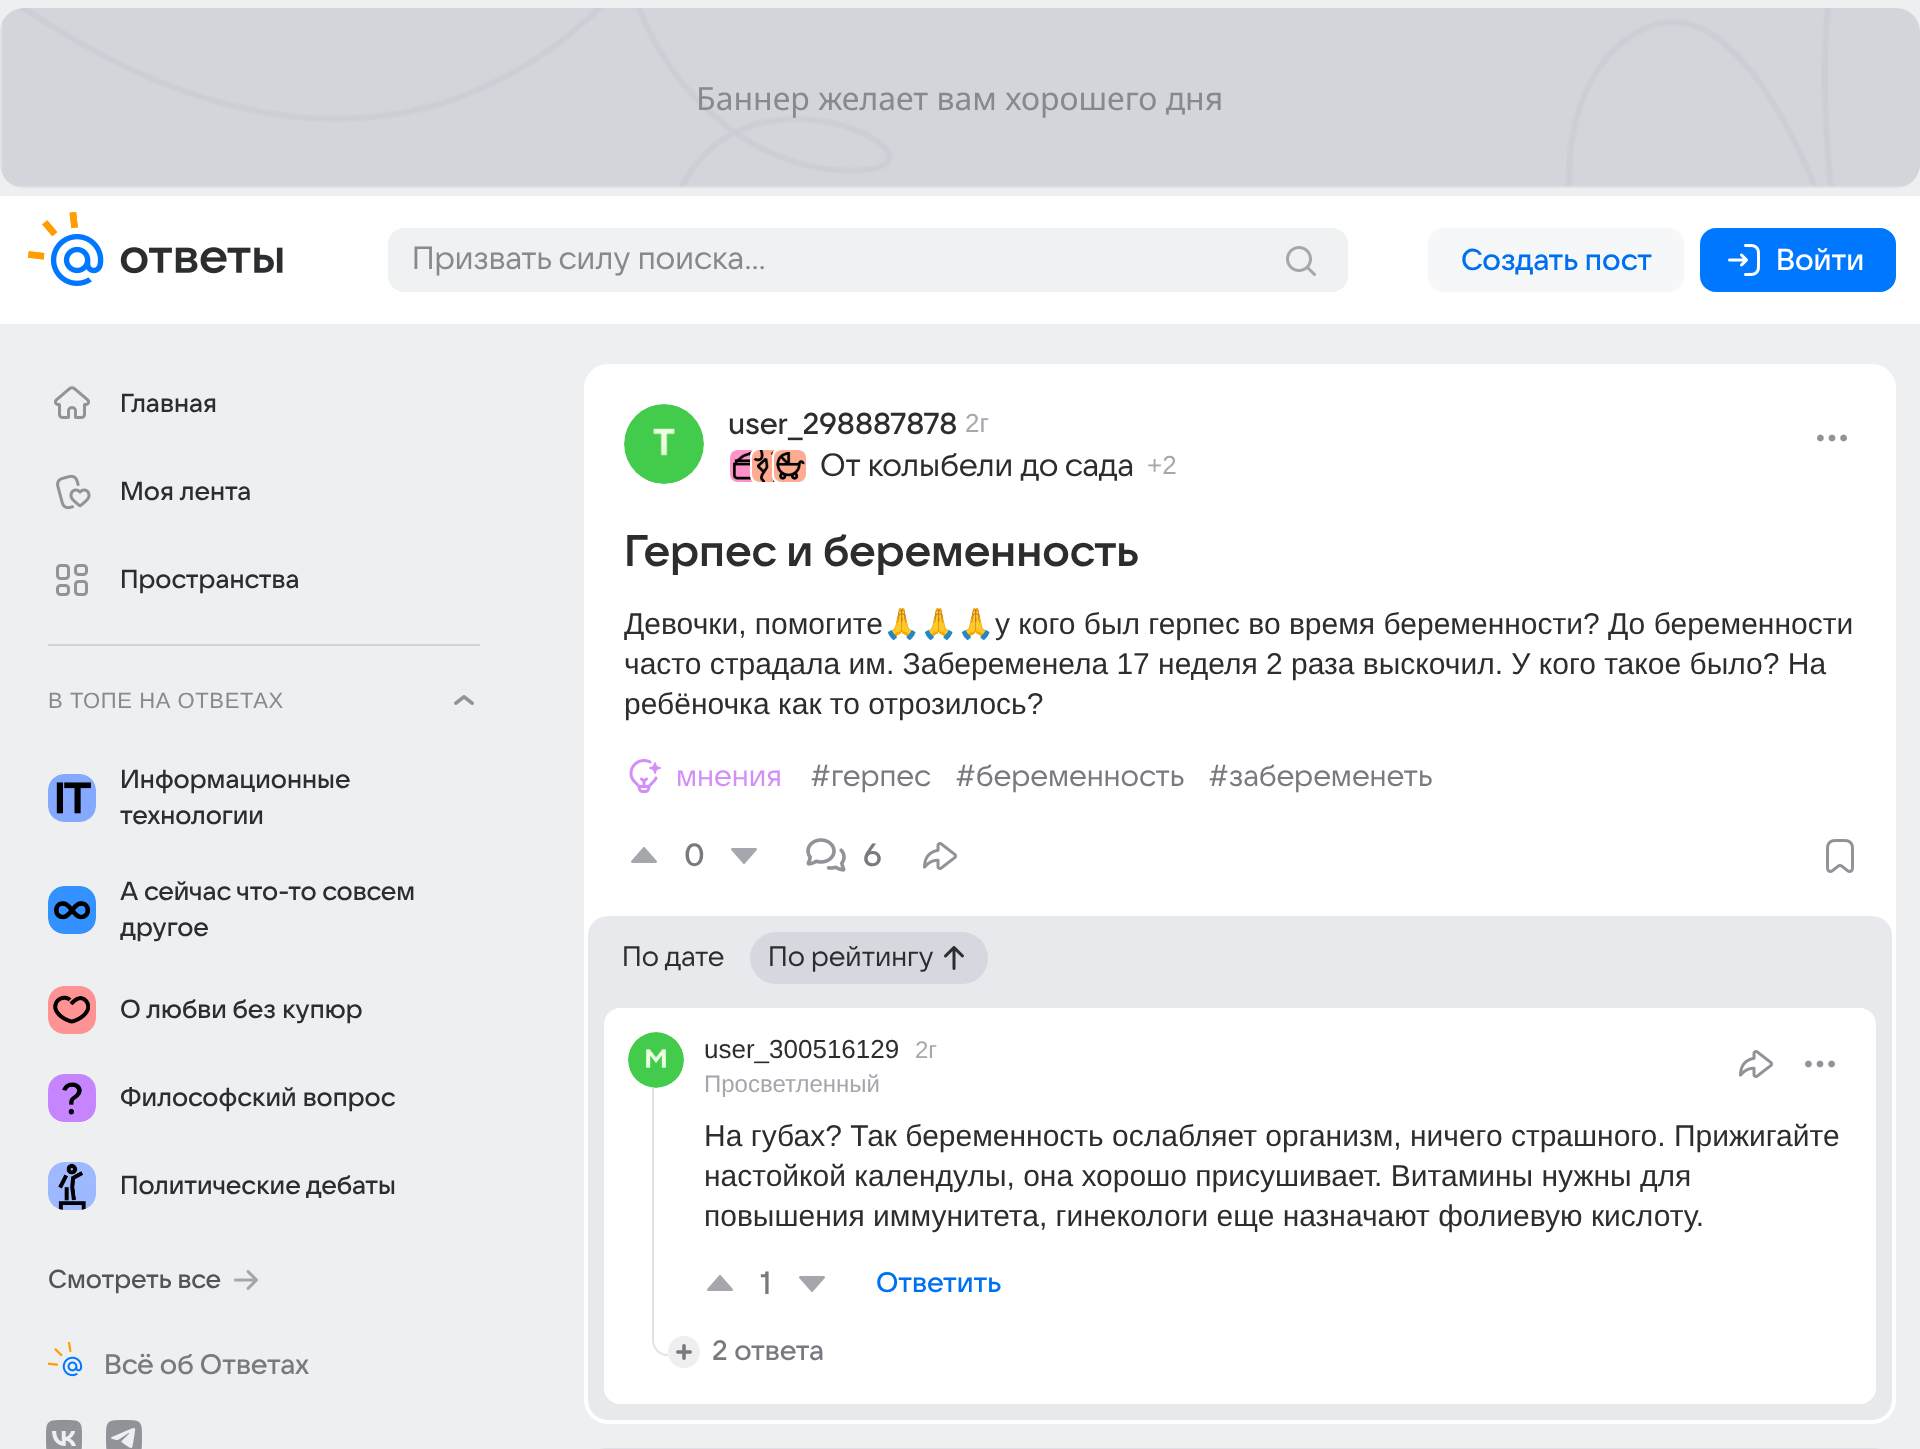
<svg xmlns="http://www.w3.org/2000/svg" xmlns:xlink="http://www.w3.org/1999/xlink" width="1920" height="1449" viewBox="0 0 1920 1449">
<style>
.cls-1{font:32px Noto Sans;fill:#87898f}
.cls-2{font:32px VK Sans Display;fill:#87898f}
.cls-3{font:500 30px VK Sans Display;fill:#0070f0}
.cls-4{font:500 30px VK Sans Display;fill:#ffffff}
.cls-5{font:500 26px VK Sans Display;fill:#2c2d2e}
.cls-6{font:22px Liberation Sans;letter-spacing:0.6px;fill:#87898f}
.cls-7{font:500 26px VK Sans Display;fill:#535455}
.cls-8{font:500 28px VK Sans Display;fill:#797a80}
.cls-9{font:500 30px VK Sans Display;fill:#2c2d2e}
.cls-10{font:26px Liberation Sans;fill:#a5a7ad}
.cls-11{font:32px VK Sans Display;fill:#2c2d2e}
.cls-12{font:600 44px VK Sans Display;fill:#2c2d2e}
.cls-13{font:30px Liberation Sans;fill:#2c2d2e}
.cls-14{font:30px Noto Color Emoji;fill:#2c2d2e}
.cls-15{font:30px VK Sans Display;fill:#d48ef7}
.cls-16{font:30px VK Sans Display;fill:#797a80}
.cls-17{font:500 32px VK Sans Display;fill:#797a80}
.cls-18{font:28px VK Sans Display;fill:#2c2d2e}
.cls-19{font:26px Liberation Sans;fill:#2c2d2e}
.cls-20{font:24px Liberation Sans;fill:#a5a7ad}
.cls-21{font:500 28px VK Sans Display;fill:#0070f0}
</style>
<rect width="100%" height="100%" fill="#eeeff1"/>
<rect fill="#e1e2e5" x="0" y="8" width="1920" height="180" rx="24"/>
<image xlink:href="image0.png" x="2" y="8" width="1918" height="179"/>
<rect fill="#ffffff" x="0" y="196" width="1920" height="128"/>
<image xlink:href="image1.png" x="28" y="212" width="255" height="74"/>
<rect fill="#f0f1f3" x="388" y="228" width="960" height="64" rx="16"/>
<image xlink:href="image2.png" x="1286" y="246" width="30" height="30"/>
<rect fill="#f6f7f8" x="1428" y="228" width="256" height="64" rx="16"/>
<rect fill="#0077ff" x="1700" y="228" width="196" height="64" rx="16"/>
<image xlink:href="image3.png" x="1728" y="244" width="32" height="32"/>
<image xlink:href="image4.png" x="54" y="386" width="36" height="33"/>
<image xlink:href="image5.png" x="56" y="474" width="35" height="36"/>
<image xlink:href="image6.png" x="56" y="564" width="32" height="32"/>
<rect fill="#d1d4db" x="48" y="644" width="432" height="2"/>
<image xlink:href="image7.png" x="454" y="695" width="20" height="10"/>
<image xlink:href="image8.png" x="48" y="774" width="48" height="48"/>
<image xlink:href="image9.png" x="48" y="886" width="48" height="48"/>
<image xlink:href="image10.png" x="48" y="986" width="48" height="48"/>
<image xlink:href="image11.png" x="48" y="1074" width="48" height="48"/>
<image xlink:href="image12.png" x="48" y="1162" width="48" height="48"/>
<image xlink:href="image13.png" x="234" y="1270" width="24" height="20"/>
<image xlink:href="image14.png" x="48" y="1342" width="35" height="35"/>
<image xlink:href="image15.png" x="46" y="1420" width="36" height="29"/>
<image xlink:href="image16.png" x="106" y="1420" width="36" height="29"/>
<rect fill="#ffffff" x="584" y="364" width="1312" height="1060" rx="24"/>
<circle fill="#f0f1f3" cx="664" cy="444" r="40"/>
<image xlink:href="image17.png" x="624" y="404" width="80" height="80"/>
<rect fill="#f0f1f3" stroke="#ffffff" stroke-width="2" x="729" y="449" width="34" height="34" rx="7"/>
<image xlink:href="image18.png" x="730" y="450" width="23" height="32"/>
<rect fill="#f0f1f3" stroke="#ffffff" stroke-width="2" x="751" y="449" width="34" height="34" rx="7"/>
<image xlink:href="image19.png" x="752" y="450" width="23" height="32"/>
<rect fill="#f0f1f3" stroke="#ffffff" stroke-width="2" x="773" y="449" width="34" height="34" rx="7"/>
<image xlink:href="image20.png" x="774" y="450" width="32" height="32"/>
<image xlink:href="image21.png" x="1817" y="434" width="30" height="8"/>
<image xlink:href="image22.png" x="629" y="759" width="32" height="34"/>
<image xlink:href="image23.png" x="631" y="847" width="26" height="16"/>
<image xlink:href="image24.png" x="731" y="848" width="26" height="16"/>
<image xlink:href="image25.png" x="806" y="838" width="40" height="34"/>
<image xlink:href="image26.png" x="923" y="842" width="34" height="28"/>
<image xlink:href="image27.png" x="1826" y="839" width="28" height="34"/>
<rect fill="#e7e9ec" x="588" y="916" width="1304" height="504" rx="20"/>
<rect fill="#d5d8de" x="750" y="932" width="238" height="52" rx="26"/>
<image xlink:href="image28.png" x="944" y="946" width="20" height="24"/>
<rect fill="#ffffff" x="604" y="1008" width="1272" height="396" rx="16"/>
<rect fill="#e0e2e8" x="652" y="1087" width="2" height="205"/>
<circle fill="#f0f1f3" cx="656" cy="1060" r="28"/>
<image xlink:href="image29.png" x="628" y="1032" width="56" height="56"/>
<image xlink:href="image26.png" x="1739" y="1050" width="34" height="28"/>
<image xlink:href="image21.png" x="1805" y="1060" width="30" height="8"/>
<image xlink:href="image23.png" x="707" y="1275" width="26" height="16"/>
<image xlink:href="image24.png" x="799" y="1276" width="26" height="16"/>
<path fill="#e0e2e8" fill-rule="evenodd" d="M652 1292H668V1356C659 1356 652 1349 652 1340ZM654 1292H668V1354C660 1354 654 1348 654 1340Z"/>
<image xlink:href="image30.png" x="668" y="1336" width="32" height="32"/>
<rect fill="#dee0e5" x="584" y="1448" width="1312" height="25" rx="24"/>
<text class="cls-1" x="696" y="110">Баннер желает вам хорошего дня</text>
<text class="cls-2" x="412" y="269">Призвать силу поиска...</text>
<text class="cls-3" x="1461" y="270">Создать пост</text>
<text class="cls-4" x="1776" y="270">Войти</text>
<text class="cls-5" x="120" y="412">Главная</text>
<text class="cls-5" x="120" y="500">Моя лента</text>
<text class="cls-5" x="120" y="588">Пространства</text>
<text class="cls-6" x="48" y="708">В ТОПЕ НА ОТВЕТАХ</text>
<text class="cls-5"><tspan x="120" y="788">Информационные</tspan><tspan x="120" y="824">технологии</tspan></text>
<text class="cls-5"><tspan x="120" y="900">А сейчас что-то совсем</tspan><tspan x="120" y="936">другое</tspan></text>
<text class="cls-5" x="120" y="1018">О любви без купюр</text>
<text class="cls-5" x="120" y="1106">Философский вопрос</text>
<text class="cls-5" x="120" y="1194">Политические дебаты</text>
<text class="cls-7" x="48" y="1288">Смотреть все</text>
<text class="cls-8" x="104" y="1374">Всё об Ответах</text>
<text class="cls-9" x="728" y="434">user_298887878</text>
<text class="cls-10" x="965" y="432">2г</text>
<text class="cls-11" x="820" y="476">От колыбели до сада</text>
<text class="cls-10" x="1147" y="474">+2</text>
<text class="cls-12" x="624" y="566">Герпес и беременность</text>
<text class="cls-13" x="624" y="634">Девочки, помогите</text>
<text class="cls-14" x="883" y="634">🙏🙏🙏</text>
<text class="cls-13" x="995" y="634">у кого был герпес во время беременности? До беременности</text>
<text class="cls-13"><tspan x="624" y="674">часто страдала им. Забеременела 17 неделя 2 раза выскочил. У кого такое было? На</tspan><tspan x="624" y="714">ребёночка как то отрозилось?</tspan></text>
<text class="cls-15" x="676" y="786">мнения</text>
<text class="cls-16" x="810" y="786">#герпес</text>
<text class="cls-16" x="955" y="786">#беременность</text>
<text class="cls-16" x="1208" y="786">#забеременеть</text>
<text class="cls-17" x="684" y="866">0</text>
<text class="cls-17" x="863" y="866">6</text>
<text class="cls-18" x="622" y="966">По дате</text>
<text class="cls-18" x="768" y="966">По рейтингу</text>
<text class="cls-19" x="704" y="1058">user_300516129</text>
<text class="cls-20" x="704" y="1092">Просветленный</text>
<text class="cls-20" x="915" y="1058">2г</text>
<text class="cls-13"><tspan x="704" y="1146">На губах? Так беременность ослабляет организм, ничего страшного. Прижигайте</tspan><tspan x="704" y="1186">настойкой календулы, она хорошо присушивает. Витамины нужны для</tspan><tspan x="704" y="1226">повышения иммунитета, гинекологи еще назначают фолиевую кислоту.</tspan></text>
<text class="cls-17" x="760" y="1294">1</text>
<text class="cls-21" x="876" y="1292">Ответить</text>
<text class="cls-8" x="712" y="1360">2 ответа</text>
</svg>
